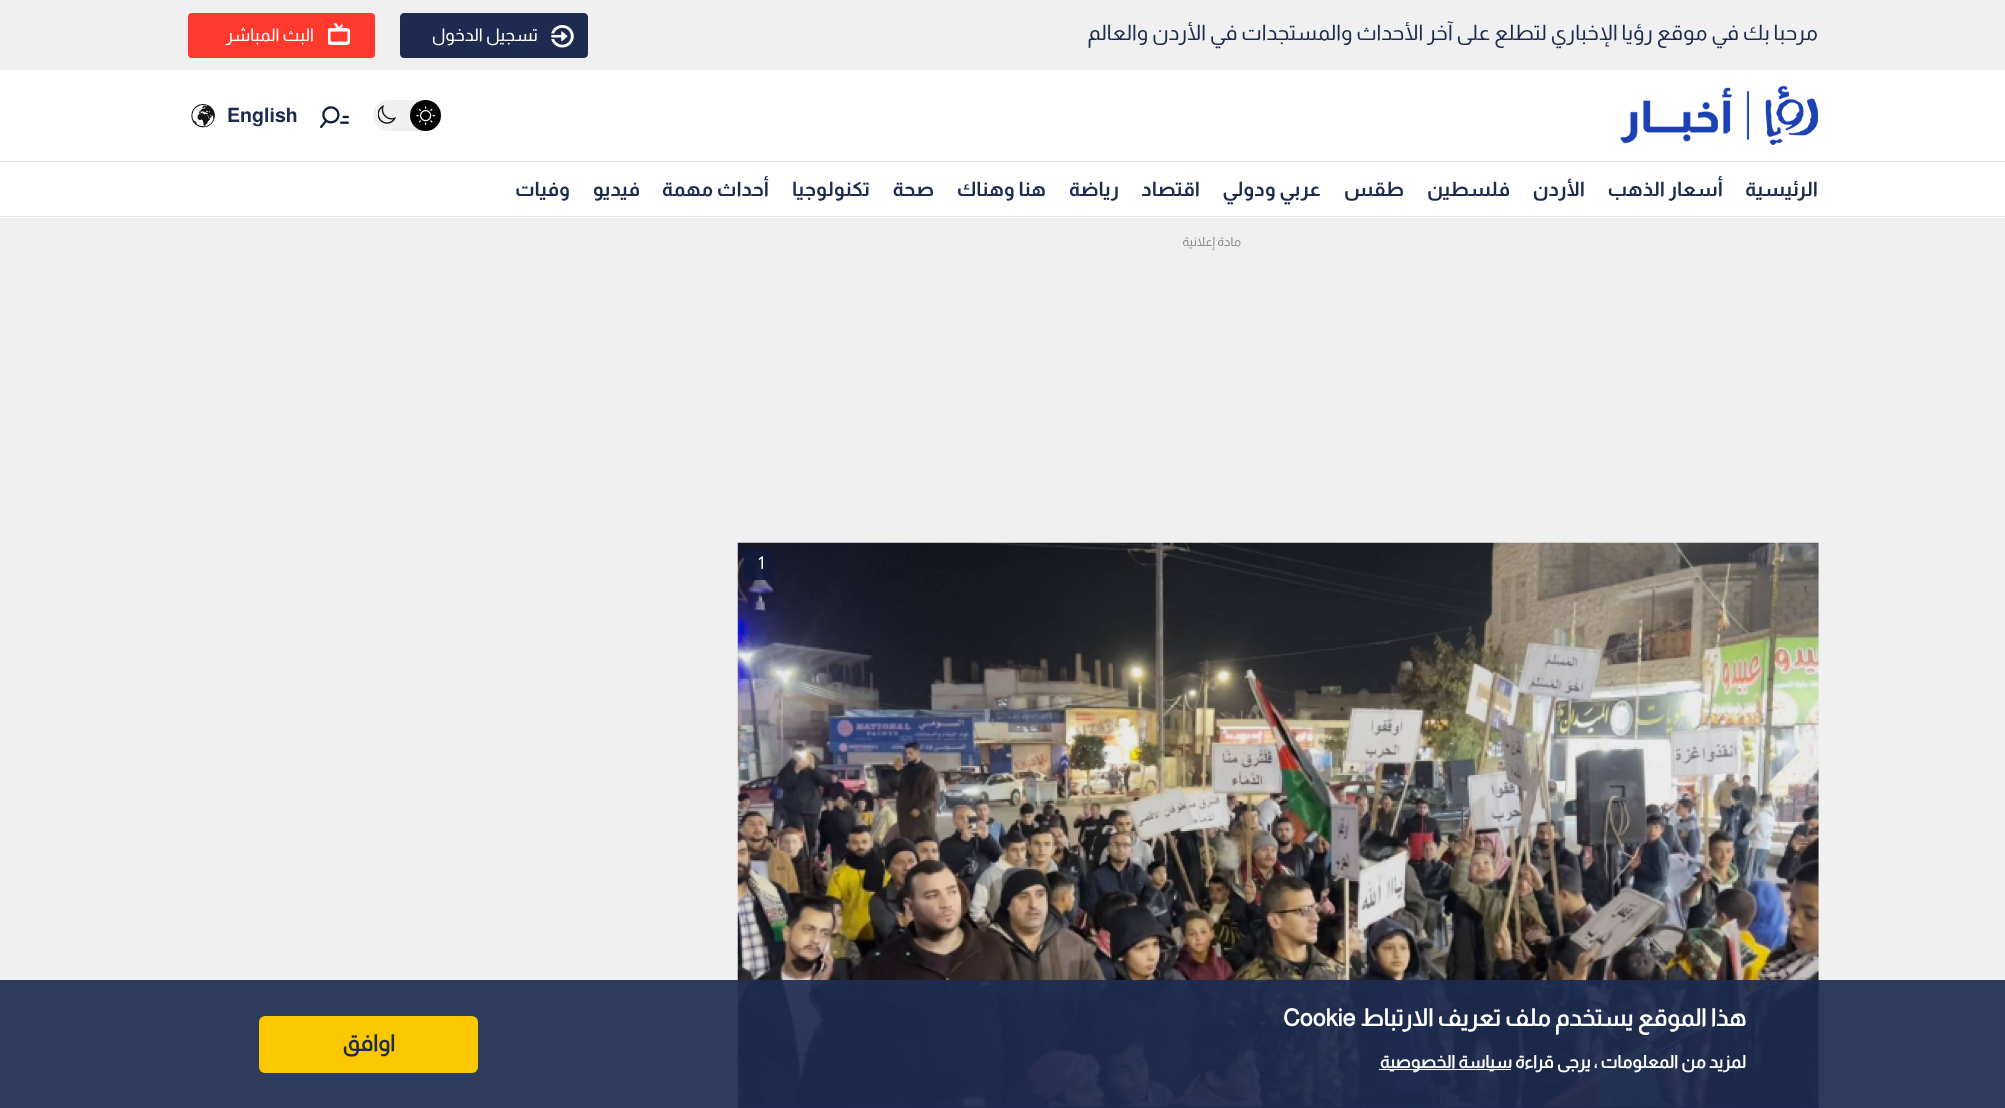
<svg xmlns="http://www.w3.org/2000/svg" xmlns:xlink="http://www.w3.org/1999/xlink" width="2005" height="1108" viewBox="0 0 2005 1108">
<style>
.cls-1{font:21.25px Almarai;direction:rtl;fill:#1c2b4f}
.cls-2{font:17.5px Almarai;direction:rtl;fill:#ffffff}
.cls-3{font:bold 20px Almarai;fill:#1c2b4f}
.cls-4{font:bold 20px Almarai;direction:rtl;fill:#1c2b4f}
.cls-5{font:bold 23.75px 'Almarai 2';direction:rtl;fill:#ffffff}
.cls-6{font:bold 23.75px 'Almarai 2';fill:#ffffff}
.cls-7{font:bold 17.5px 'Almarai 2';direction:rtl;fill:#ffffff}
.cls-8{font:bold 22.5px 'Almarai 2';direction:rtl;fill:#1c2b4f}
.cls-9{font:12.5px Almarai;direction:rtl;fill:#918d8d}
.cls-10{font:17.5px Almarai;fill:#ffffff}
</style>
<rect width="100%" height="100%" fill="#f0f0f0"/>
<rect fill="#1c2b4f" stroke="#1c2b4f" x="400.5" y="13.5" width="187" height="44" rx="3.5"/>
<image xlink:href="image0.png" x="551" y="25" width="23" height="23"/>
<rect fill="#ff392e" x="188" y="13" width="187" height="45" rx="4"/>
<image xlink:href="image1.png" x="328" y="23" width="22" height="22"/>
<rect fill="#ffffff" x="0" y="70" width="2005" height="148"/>
<image xlink:href="image2.png" x="1620" y="85" width="198" height="60"/>
<rect fill="#f0f0f0" x="373" y="100" width="68" height="31" rx="15.5"/>
<circle fill="#000000" cx="425.5" cy="115.5" r="15.5"/>
<image xlink:href="image3.png" x="416" y="106" width="19" height="19"/>
<image xlink:href="image4.png" x="378" y="105" width="18" height="19"/>
<image xlink:href="image5.png" x="320" y="106" width="29" height="23"/>
<image xlink:href="image6.png" x="191" y="104" width="24" height="24"/>
<rect fill="#e5e5e5" x="0" y="161" width="2005" height="1"/>
<rect fill="#e5e5e5" x="0" y="216" width="2005" height="1"/>
<rect fill="#ececec" x="1818" y="543" width="1" height="565"/>
<image xlink:href="image7.png" x="737" y="542" width="1082" height="566"/>
<rect fill="#1c2b4f" fill-opacity="0.78" x="738" y="1106" width="1081" height="2"/>
<rect fill="#1c2b4f" fill-opacity="0.92" x="0" y="980" width="2005" height="128"/>
<rect fill="#ffffff" x="1379" y="1069" width="132" height="1"/>
<rect fill="#fbc700" x="259" y="1016" width="219" height="57" rx="6"/>
<rect fill="#0f1c3c" fill-opacity="0.89" x="744" y="549" width="29" height="31" rx="4"/>
<text class="cls-1" x="1818" y="40">مرحبا بك في موقع رؤيا الإخباري لتطلع على آخر الأحداث والمستجدات في الأردن والعالم</text>
<text class="cls-2" x="538" y="41">تسجيل الدخول</text>
<text class="cls-2" x="314" y="41">البث المباشر</text>
<text class="cls-3" x="227" y="122">English</text>
<text class="cls-4" x="1818" y="196">الرئيسية</text>
<text class="cls-4" x="1723" y="196">أسعار الذهب</text>
<text class="cls-4" x="1585" y="196">الأردن</text>
<text class="cls-4" x="1510" y="196">فلسطين</text>
<text class="cls-4" x="1404" y="196">طقس</text>
<text class="cls-4" x="1321" y="196">عربي ودولي</text>
<text class="cls-4" x="1200" y="196">اقتصاد</text>
<text class="cls-4" x="1119" y="196">رياضة</text>
<text class="cls-4" x="1046" y="196">هنا وهناك</text>
<text class="cls-4" x="934" y="196">صحة</text>
<text class="cls-4" x="870" y="196">تكنولوجيا</text>
<text class="cls-4" x="769" y="196">أحداث مهمة</text>
<text class="cls-4" x="640" y="196">فيديو</text>
<text class="cls-4" x="570" y="196">وفيات</text>
<text class="cls-5" x="1746" y="1026">هذا الموقع يستخدم ملف تعريف الارتباط</text>
<text class="cls-6" x="1283" y="1026">Cookie</text>
<text class="cls-7" x="1746" y="1068">لمزيد من المعلومات ، يرجى قراءة</text>
<text class="cls-7" x="1512" y="1068">سياسة الخصوصية</text>
<text class="cls-8" x="395" y="1051">اوافق</text>
<text class="cls-9" x="1241" y="246">مادة إعلانية</text>
<text class="cls-10" x="758" y="569">1</text>
</svg>
